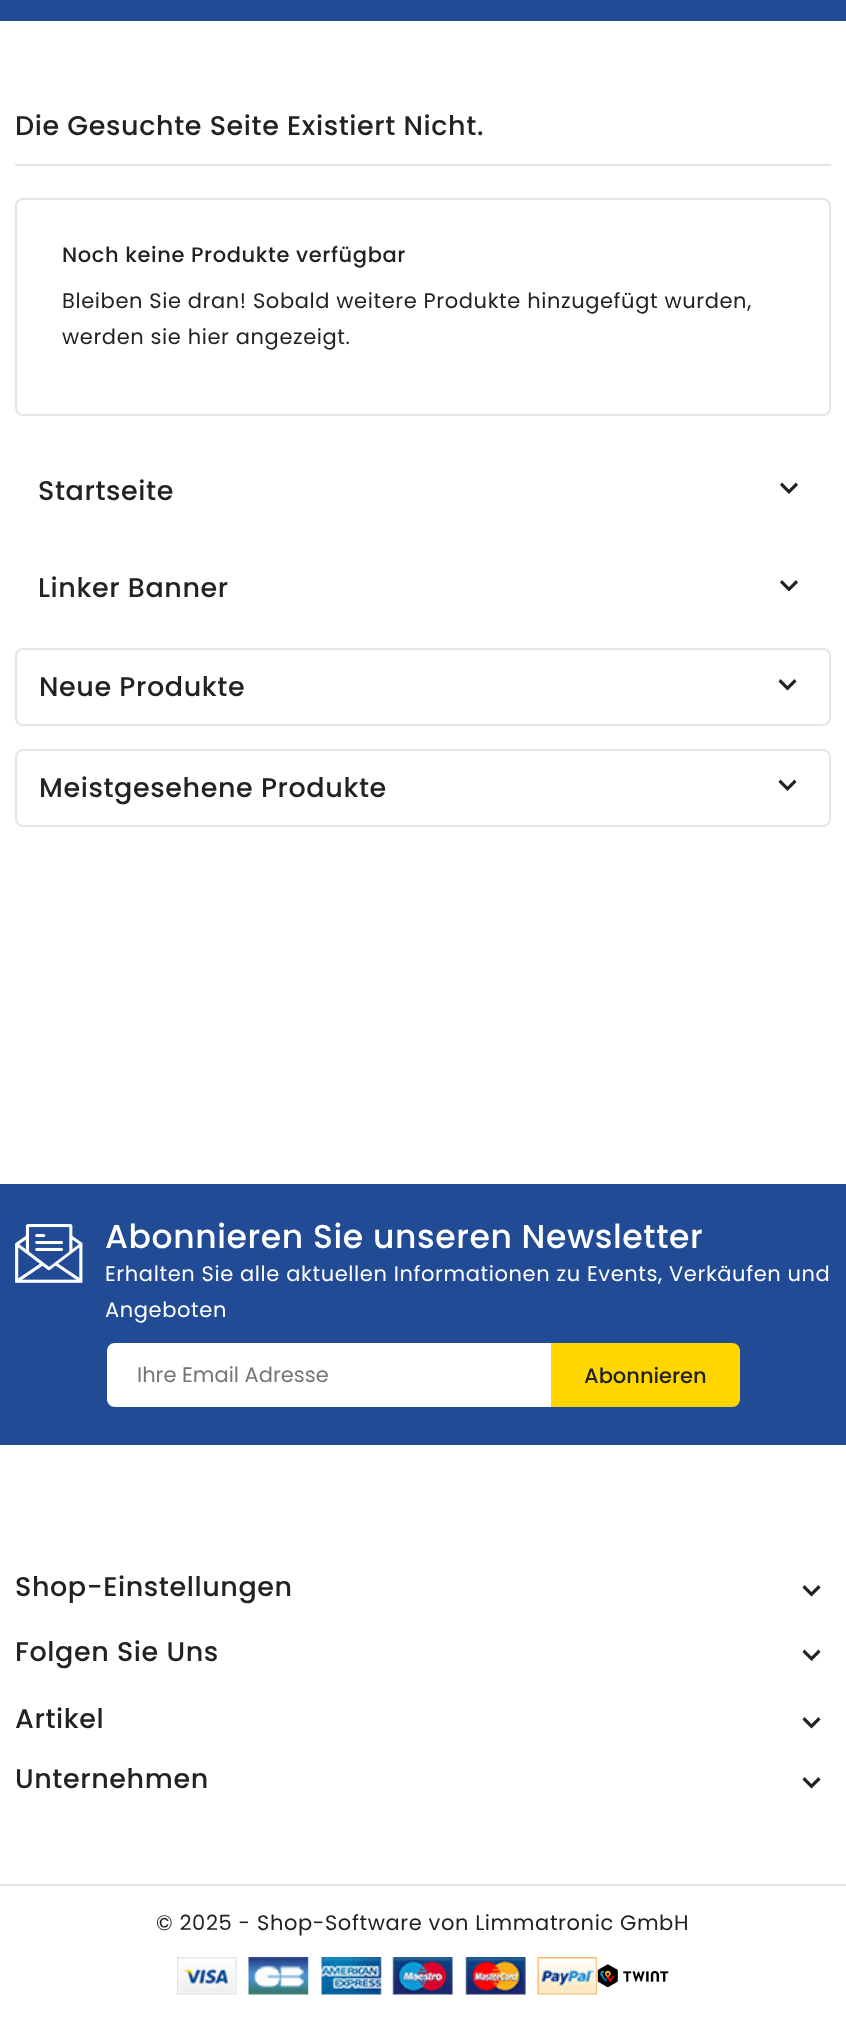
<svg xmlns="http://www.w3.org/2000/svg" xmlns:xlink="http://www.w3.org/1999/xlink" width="846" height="2031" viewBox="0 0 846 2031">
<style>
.cls-1{font:500 27px Poppins;letter-spacing:0.6px;fill:#222222}
.cls-2{font:500 21px Poppins;letter-spacing:0.6px;fill:#222222}
.cls-3{font:21px Poppins;letter-spacing:0.6px;fill:#222222}
.cls-4{font:500 33px Poppins;letter-spacing:0.6px;fill:#ffffff}
.cls-5{font:21px Poppins;letter-spacing:0.6px;fill:#ffffff}
.cls-6{font:21px Poppins;fill:#757575}
.cls-7{font:500 21px Poppins;fill:#222222}
</style>
<rect width="100%" height="100%" fill="#ffffff"/>
<rect fill="#214b95" x="0" y="0" width="846" height="21"/>
<rect fill="#e5e5e5" x="15" y="164" width="816" height="2"/>
<rect fill="none" stroke="#e5e5e5" stroke-width="2" x="16" y="199" width="814" height="216" rx="7"/>
<path fill="#222222" d="M782 482.5L789 489.5L796 482.5L798 485L789 494L780 485Z"/>
<path fill="#222222" d="M782 580L789 587L796 580L798 582.5L789 591.5L780 582.5Z"/>
<rect fill="none" stroke="#e5e5e5" stroke-width="2" x="16" y="649" width="814" height="76" rx="7"/>
<path fill="#222222" d="M780.5 679L787.5 686L794.5 679L796.5 681.5L787.5 690.5L778.5 681.5Z"/>
<rect fill="none" stroke="#e5e5e5" stroke-width="2" x="16" y="750" width="814" height="76" rx="7"/>
<path fill="#222222" d="M780.5 779.5L787.5 786.5L794.5 779.5L796.5 782L787.5 791L778.5 782Z"/>
<rect fill="#214b95" x="0" y="1184" width="846" height="261"/>
<image xlink:href="image0.png" x="15" y="1224" width="68" height="59"/>
<path fill="#ffffff" d="M115 1343H551V1407H115C110.5 1407 107 1403.5 107 1399V1351C107 1346.5 110.5 1343 115 1343Z"/>
<path fill="#ffd600" d="M551 1343H732C736.5 1343 740 1346.5 740 1351V1399C740 1403.5 736.5 1407 732 1407H551Z"/>
<path fill="#222222" d="M804.5 1585L811.5 1592L818.5 1585L820.5 1587.5L811.5 1596.5L802.5 1587.5Z"/>
<path fill="#222222" d="M804.5 1649.5L811.5 1656.5L818.5 1649.5L820.5 1652L811.5 1661L802.5 1652Z"/>
<path fill="#222222" d="M804.5 1717L811.5 1724L818.5 1717L820.5 1719.5L811.5 1728.5L802.5 1719.5Z"/>
<path fill="#222222" d="M804.5 1777L811.5 1784L818.5 1777L820.5 1779.5L811.5 1788.5L802.5 1779.5Z"/>
<rect fill="#e5e5e5" x="0" y="1884" width="846" height="2"/>
<image xlink:href="image1.png" x="177" y="1957" width="420" height="38"/>
<image xlink:href="image2.png" x="597" y="1964" width="72" height="24"/>
<text class="cls-1" x="15" y="135">Die Gesuchte Seite Existiert Nicht.</text>
<text class="cls-2" x="62" y="262">Noch keine Produkte verfügbar</text>
<text class="cls-3"><tspan x="62" y="308">Bleiben Sie dran! Sobald weitere Produkte hinzugefügt wurden,</tspan><tspan x="62" y="344">werden sie hier angezeigt.</tspan></text>
<text class="cls-1" x="38" y="500">Startseite</text>
<text class="cls-1" x="38" y="597">Linker Banner</text>
<text class="cls-1" x="39" y="696">Neue Produkte</text>
<text class="cls-1" x="39" y="797">Meistgesehene Produkte</text>
<text class="cls-4" x="105" y="1248">Abonnieren Sie unseren Newsletter</text>
<text class="cls-5"><tspan x="105" y="1281">Erhalten Sie alle aktuellen Informationen zu Events, Verkäufen und</tspan><tspan x="105" y="1317">Angeboten</tspan></text>
<text class="cls-6" x="137" y="1382">Ihre Email Adresse</text>
<text class="cls-7" x="584" y="1383">Abonnieren</text>
<text class="cls-1" x="15" y="1596">Shop-Einstellungen</text>
<text class="cls-1" x="15" y="1661">Folgen Sie Uns</text>
<text class="cls-1" x="15" y="1728">Artikel</text>
<text class="cls-1" x="15" y="1788">Unternehmen</text>
<text class="cls-3" x="156" y="1930">© 2025 - Shop-Software von Limmatronic GmbH</text>
</svg>
